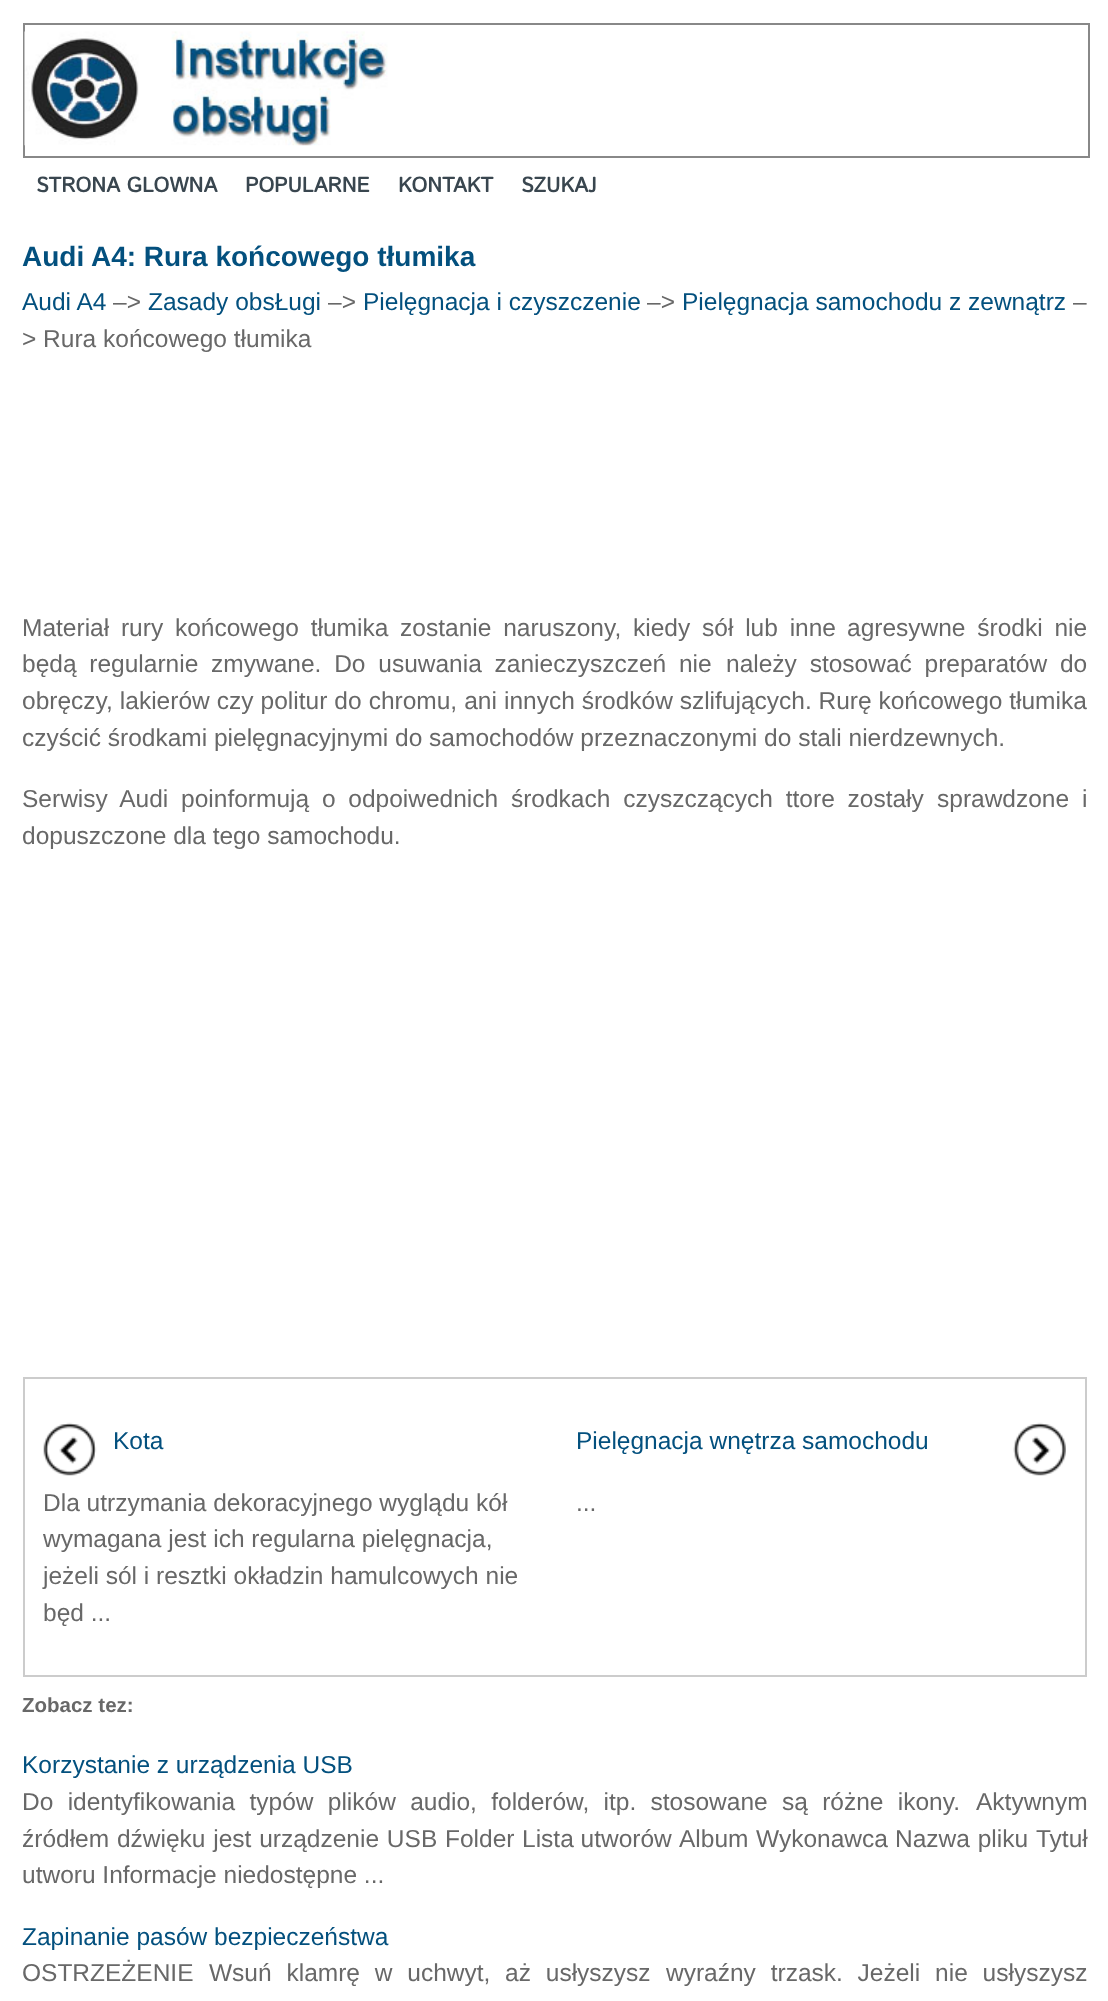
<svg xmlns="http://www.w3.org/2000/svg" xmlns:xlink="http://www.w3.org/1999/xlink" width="1108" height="2001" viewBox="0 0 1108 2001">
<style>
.cls-1{font:bold 21px Istok Web;fill:#39464f}
.cls-2{font:bold 28px Liberation Sans;fill:#03507e}
.cls-3{font:24.5px Liberation Sans;fill:#03507e}
.cls-4{font:24.5px Liberation Sans;fill:#686868}
.cls-5{font:bold 20.5px Liberation Sans;fill:#686868}
</style>
<rect width="100%" height="100%" fill="#ffffff"/>
<rect fill="none" stroke="#888888" stroke-width="2" x="24" y="24" width="1065" height="133"/>
<image xlink:href="image0.png" x="24" y="31" width="364" height="115"/>
<rect fill="none" stroke="#cccccc" stroke-width="2" x="24" y="1378" width="1062" height="298"/>
<image xlink:href="image1.png" x="43" y="1422" width="54" height="54"/>
<image xlink:href="image2.png" x="1013" y="1422" width="53" height="54"/>
<text class="cls-1" x="36" y="192">STRONA GLOWNA</text>
<text class="cls-1" x="245" y="192">POPULARNE</text>
<text class="cls-1" x="398" y="192">KONTAKT</text>
<text class="cls-1" x="521" y="192">SZUKAJ</text>
<text class="cls-2" x="22" y="266">Audi A4: Rura końcowego tłumika</text>
<text class="cls-3" x="22" y="310">Audi A4</text>
<text class="cls-4" x="113" y="310">–&gt;</text>
<text class="cls-3" x="148" y="310">Zasady obsŁugi</text>
<text class="cls-4" x="328" y="310">–&gt;</text>
<text class="cls-3" x="363" y="310">Pielęgnacja i czyszczenie</text>
<text class="cls-4" x="647" y="310">–&gt;</text>
<text class="cls-3" x="682" y="310">Pielęgnacja samochodu z zewnątrz</text>
<text class="cls-4" x="1073" y="310">–</text>
<text class="cls-4" x="22" y="347">&gt; Rura końcowego tłumika</text>
<text class="cls-4" x="22" y="636" word-spacing="5">Materiał rury końcowego tłumika zostanie naruszony, kiedy sół lub inne</text>
<text class="cls-4" x="847" y="636" word-spacing="5">agresywne środki nie</text>
<text class="cls-4" x="22" y="672" word-spacing="6">będą regularnie zmywane. Do usuwania zanieczyszczeń nie</text>
<text class="cls-4" x="726" y="672" word-spacing="6">należy stosować preparatów do</text>
<text class="cls-4" x="22" y="709" word-spacing="0.25">obręczy, lakierów czy politur do chromu, ani</text>
<text class="cls-4" x="504" y="709">innych środków szlifujących. Rurę końcowego tłumika</text>
<text class="cls-4" x="22" y="746">czyścić środkami pielęgnacyjnymi do samochodów przeznaczonymi do stali nierdzewnych.</text>
<text class="cls-4" x="22" y="807" word-spacing="6">Serwisy Audi poinformują o odpoiwednich środkach czyszczących ttore zostały</text>
<text class="cls-4" x="937" y="807" word-spacing="6">sprawdzone i</text>
<text class="cls-4" x="22" y="844">dopuszczone dla tego samochodu.</text>
<text class="cls-3" x="113" y="1449">Kota</text>
<text class="cls-4"><tspan x="43" y="1511">Dla utrzymania dekoracyjnego wyglądu kół</tspan><tspan x="43" y="1547">wymagana jest ich regularna pielęgnacja,</tspan><tspan x="43" y="1584">jeżeli sól i resztki okładzin hamulcowych nie</tspan><tspan x="43" y="1621">będ ...</tspan></text>
<text class="cls-3" x="576" y="1449">Pielęgnacja wnętrza samochodu</text>
<text class="cls-4" x="576" y="1511">...</text>
<text class="cls-5" x="22" y="1712">Zobacz tez:</text>
<text class="cls-3" x="22" y="1773">Korzystanie z urządzenia USB</text>
<text class="cls-4" x="22" y="1810" word-spacing="7.5">Do identyfikowania typów plików audio, folderów, itp. stosowane są różne ikony.</text>
<text class="cls-4" x="976" y="1810">Aktywnym</text>
<text class="cls-4" x="22" y="1847" word-spacing="1">źródłem dźwięku jest urządzenie USB</text>
<text class="cls-4" x="445" y="1847">Folder</text>
<text class="cls-4" x="522" y="1847">Lista utworów</text>
<text class="cls-4" x="679" y="1847">Album</text>
<text class="cls-4" x="756" y="1847">Wykonawca</text>
<text class="cls-4" x="895" y="1847" word-spacing="1">Nazwa pliku</text>
<text class="cls-4" x="1036" y="1847">Tytuł</text>
<text class="cls-4" x="22" y="1883">utworu Informacje niedostępne ...</text>
<text class="cls-3" x="22" y="1945">Zapinanie pasów bezpieczeństwa</text>
<text class="cls-4" x="22" y="1981">OSTRZEŻENIE</text>
<text class="cls-4" x="209" y="1981" word-spacing="8">Wsuń klamrę w uchwyt, aż usłyszysz</text>
<text class="cls-4" x="666" y="1981" word-spacing="8">wyraźny trzask. Jeżeli nie usłyszysz</text>
</svg>
